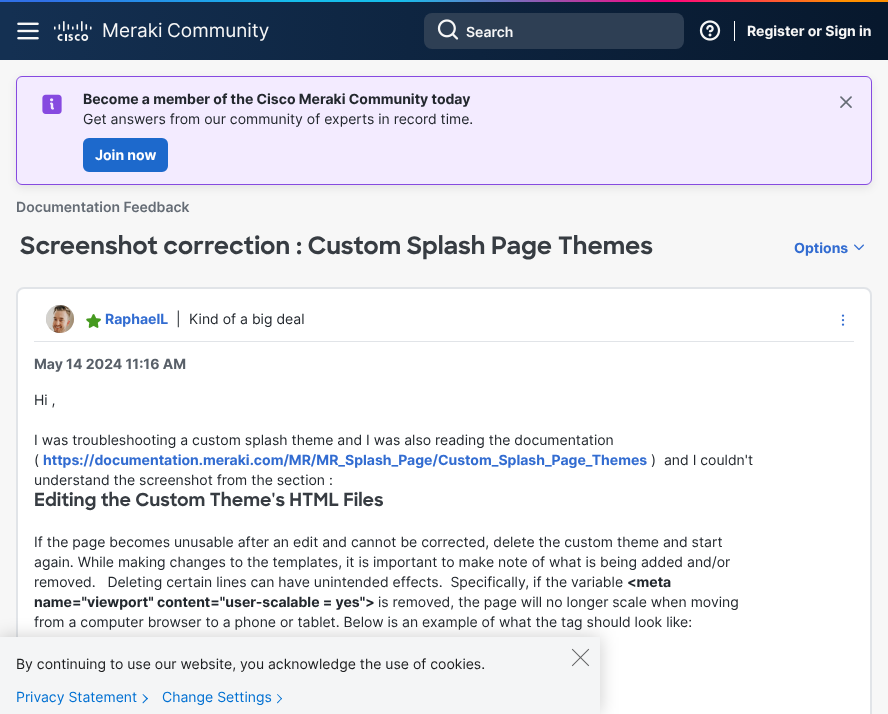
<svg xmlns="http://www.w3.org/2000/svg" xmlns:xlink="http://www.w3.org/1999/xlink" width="888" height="714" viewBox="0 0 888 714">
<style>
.cls-1{font:19px Inter;fill:#f7f7f7}
.cls-2{font:600 14px Inter;fill:#f7f7f7}
.cls-3{font:bold 14px Inter;fill:#f7f7f7}
.cls-4{font:bold 14px Inter;fill:#23282e}
.cls-5{font:14px Inter;fill:#23282e}
.cls-6{font:bold 14px Inter;fill:#ffffff}
.cls-7{font:600 14px Inter;fill:#656c75}
.cls-8{font:bold 24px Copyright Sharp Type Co;fill:#373c42}
.cls-9{font:bold 14px Inter;fill:#326cd1}
.cls-10{font:bold 14px Inter;fill:#596069}
.cls-11{font:bold 18px Copyright Sharp Type Co;fill:#373c42}
.cls-12{font:14px Inter;fill:#1b1c1d}
.cls-13{font:14px Inter;fill:#0070d2}
</style>
<defs>
<linearGradient id="g1" gradientUnits="userSpaceOnUse" x1="0" y1="30" x2="888" y2="30"><stop offset="0.01" stop-color="#143052"/><stop offset="0.99" stop-color="#07182d"/></linearGradient>
<linearGradient id="g2" gradientUnits="userSpaceOnUse" x1="0" y1="1" x2="888" y2="1"><stop offset="0.05" stop-color="#3070e7"/><stop offset="0.33" stop-color="#16bdeb"/><stop offset="0.45" stop-color="#16bdeb"/><stop offset="0.75" stop-color="#ff007f"/><stop offset="0.95" stop-color="#ff9000"/></linearGradient>
</defs>
<rect width="100%" height="100%" fill="#f7f7f7"/>
<rect fill="url(#g1)" x="0" y="2" width="888" height="58"/>
<rect fill="url(#g2)" x="0" y="0" width="888" height="2"/>
<image xlink:href="image0.png" x="17" y="22" width="22" height="18"/>
<image xlink:href="image1.png" x="54" y="21" width="38" height="20"/>
<rect fill="#2e3f54" x="424" y="13" width="260" height="36" rx="8"/>
<image xlink:href="image2.png" x="437" y="19" width="22" height="21"/>
<image xlink:href="image3.png" x="699" y="20" width="22" height="21"/>
<rect fill="#ffffff" x="734" y="21" width="1" height="20"/>
<rect fill="#000000" fill-opacity="0.08" filter="blur(4px)" x="16" y="79" width="856" height="109" rx="6"/>
<rect fill="#f3ebff" stroke="#864ae0" x="16.5" y="76.5" width="855" height="108" rx="5.5"/>
<image xlink:href="image4.png" x="42" y="94" width="20" height="20"/>
<rect fill="#1d69cc" stroke="#1d69cc" stroke-width="2" x="84" y="139" width="83" height="32" rx="5"/>
<image xlink:href="image5.png" x="840" y="96" width="12" height="12"/>
<image xlink:href="image6.png" x="854" y="244" width="10" height="7"/>
<rect fill="#ffffff" stroke="#e1e4e8" stroke-width="2" x="17" y="288" width="854" height="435" rx="7"/>
<rect fill="#e1e4e8" x="34" y="341" width="820" height="1"/>
<rect fill="#e1e4e8" filter="blur(0.5px)" x="46" y="305" width="28" height="28" rx="14"/>
<image xlink:href="image7.png" x="46" y="305" width="28" height="28"/>
<image xlink:href="image8.png" x="86" y="314" width="15" height="14"/>
<image xlink:href="image9.png" x="841" y="314" width="4" height="12"/>
<rect fill="#000000" fill-opacity="0.2" filter="blur(9px)" x="0" y="637" width="600" height="77"/>
<rect fill="#f4f5f6" x="0" y="637" width="600" height="77"/>
<path fill="#0070d2" d="M143 694L148 698.5L147 699.5L142.5 694.5Z"/>
<path fill="#0070d2" d="M147 698L148 698.5L143 703.5L142.5 702.5Z"/>
<path fill="#0070d2" d="M277.5 694L282 698.5L281.5 699.5L277 694.5Z"/>
<path fill="#0070d2" d="M281.5 698L282 698.5L277.5 703.5L277 702.5Z"/>
<image xlink:href="image10.png" x="571" y="648" width="19" height="19"/>
<text class="cls-1" x="102" y="37">Meraki</text>
<text class="cls-1" x="167" y="37">Community</text>
<text class="cls-2" x="466" y="37">Search</text>
<text class="cls-3" x="747" y="36">Register or Sign in</text>
<text class="cls-4" x="83" y="104">Become a member of the Cisco Meraki Community today</text>
<text class="cls-5" x="83" y="124">Get answers from our community of experts in record time.</text>
<text class="cls-6" x="95" y="160">Join now</text>
<text class="cls-7" x="16" y="212">Documentation Feedback</text>
<text class="cls-8" x="20" y="254">Screenshot correction : Custom Splash Page Themes</text>
<text class="cls-9" x="794" y="253">Options</text>
<text class="cls-9" x="105" y="324">RaphaelL</text>
<text class="cls-5" x="176" y="324">|</text>
<text class="cls-5" x="189" y="324">Kind of a big deal</text>
<text class="cls-10" x="34" y="369">May 14 2024 11:16 AM</text>
<text class="cls-5" x="34" y="405">Hi ,</text>
<text class="cls-5"><tspan x="34" y="445">I was troubleshooting a custom splash theme and I was also reading the documentation</tspan><tspan x="34" y="465">(</tspan></text>
<text class="cls-9" x="43" y="465">https://documentation.meraki.com/MR/MR_Splash_Page/Custom_Splash_Page_Themes</text>
<text class="cls-5" xml:space="preserve" x="651" y="465">)  and I couldn't</text>
<text class="cls-5" x="34" y="485">understand the screenshot from the section :</text>
<text class="cls-11" x="34" y="506">Editing the Custom Theme's HTML Files</text>
<text class="cls-5" xml:space="preserve"><tspan x="34" y="547">If the page becomes unusable after an edit and cannot be corrected, delete the custom theme and start</tspan><tspan x="34" y="567">again. While making changes to the templates, it is important to make note of what is being added and/or</tspan><tspan x="34" y="587">removed.   Deleting certain lines can have unintended effects.  Specifically, if the variable</tspan></text>
<text class="cls-4" x="627" y="587">&lt;meta</text>
<text class="cls-4" x="34" y="607">name="viewport" content="user-scalable = yes"&gt;</text>
<text class="cls-5" x="378" y="607">is removed, the page will no longer scale when moving</text>
<text class="cls-5" x="34" y="627">from a computer browser to a phone or tablet. Below is an example of what the tag should look like:</text>
<text class="cls-12" x="16" y="669">By continuing to use our website, you acknowledge the use of cookies.</text>
<text class="cls-13" x="16" y="702">Privacy Statement</text>
<text class="cls-13" x="162" y="702">Change Settings</text>
</svg>
